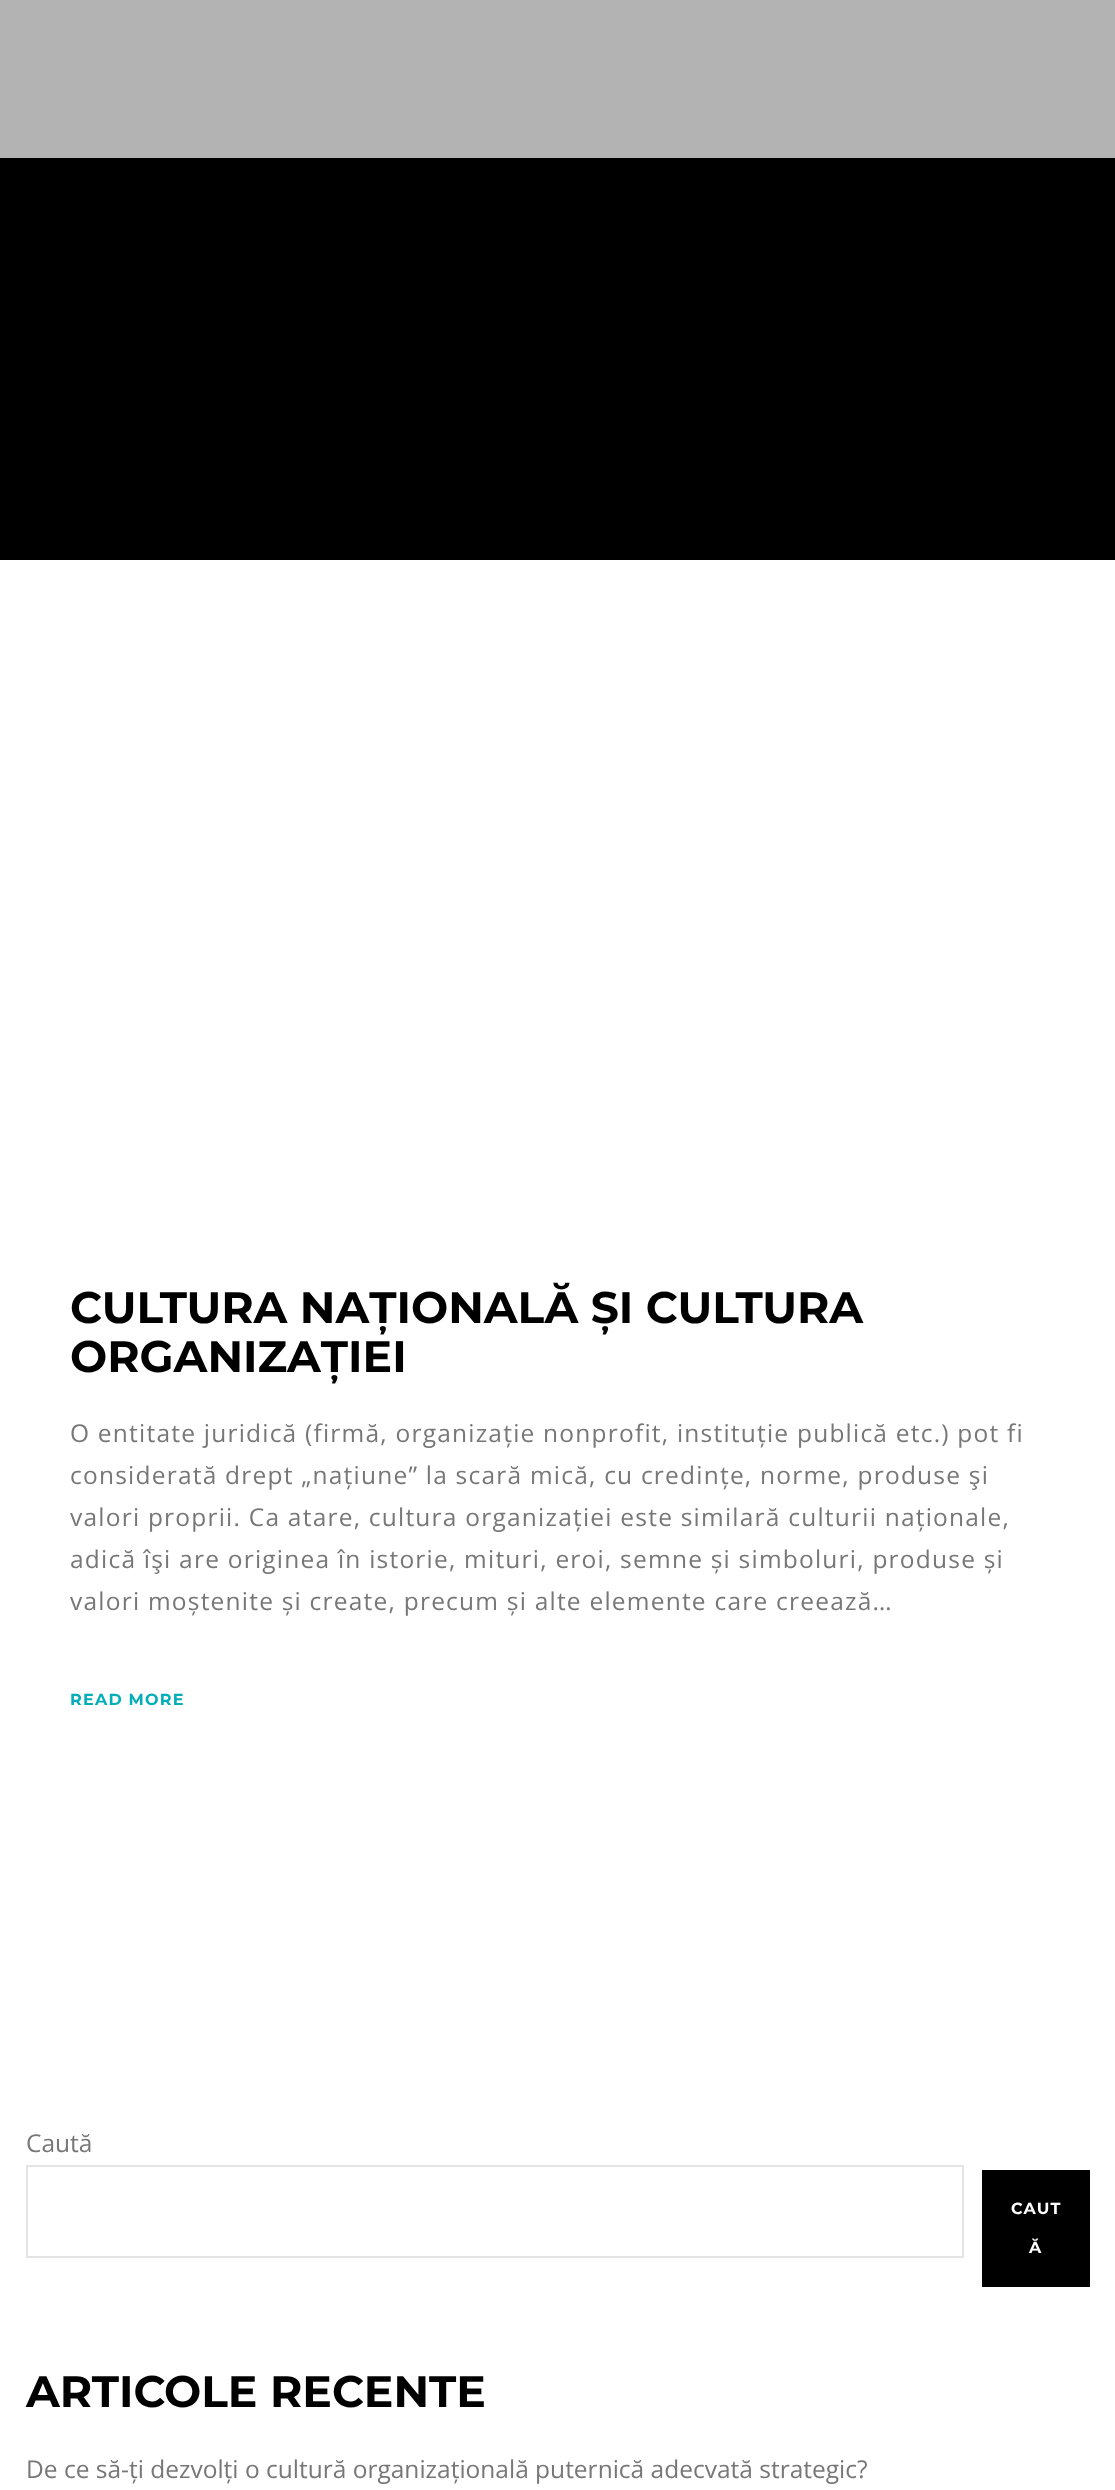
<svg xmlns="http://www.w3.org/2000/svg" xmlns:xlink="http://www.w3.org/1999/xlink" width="1115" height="2490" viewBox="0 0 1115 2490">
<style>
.cls-1{font:100 44.1px Montserrat;fill:#000000}
.cls-2{font:24.5px Open Sans;letter-spacing:1.22px;fill:#777777}
.cls-3{font:100 16px Montserrat;letter-spacing:1.22px;fill:#03aeb8}
.cls-4{font:24.5px Open Sans;fill:#777777}
.cls-5{font:100 16px Montserrat;letter-spacing:1.22px;fill:#ffffff}
</style>
<rect width="100%" height="100%" fill="#000000"/>
<rect fill="#b3b3b3" x="0" y="0" width="1115" height="158"/>
<rect fill="#ffffff" x="0" y="560" width="1115" height="1930"/>
<rect fill="none" stroke="#e4e4e4" stroke-width="2" x="27" y="2166" width="936" height="91"/>
<rect fill="#000000" x="982" y="2170" width="108" height="117"/>
<text class="cls-1"><tspan x="70" y="1323">CULTURA NAȚIONALĂ ȘI CULTURA</tspan><tspan x="70" y="1372">ORGANIZAȚIEI</tspan></text>
<text class="cls-2"><tspan x="70" y="1442">O entitate juridică (firmă, organizație nonprofit, instituție publică etc.) pot fi</tspan><tspan x="70" y="1484">considerată drept „națiune” la scară mică, cu credințe, norme, produse şi</tspan><tspan x="70" y="1526">valori proprii. Ca atare, cultura organizației este similară culturii naționale,</tspan><tspan x="70" y="1568">adică îşi are originea în istorie, mituri, eroi, semne și simboluri, produse și</tspan><tspan x="70" y="1610">valori moștenite și create, precum și alte elemente care creează…</tspan></text>
<text class="cls-3" x="70" y="1705">READ MORE</text>
<text class="cls-4" x="26" y="2152">Caută</text>
<text class="cls-5" x="1011" y="2214">CAUT</text>
<text class="cls-5" x="1029" y="2253">Ă</text>
<text class="cls-1" x="26" y="2407">ARTICOLE RECENTE</text>
<text class="cls-4" x="26" y="2478">De ce să-ți dezvolți o cultură organizațională puternică adecvată strategic?</text>
</svg>
